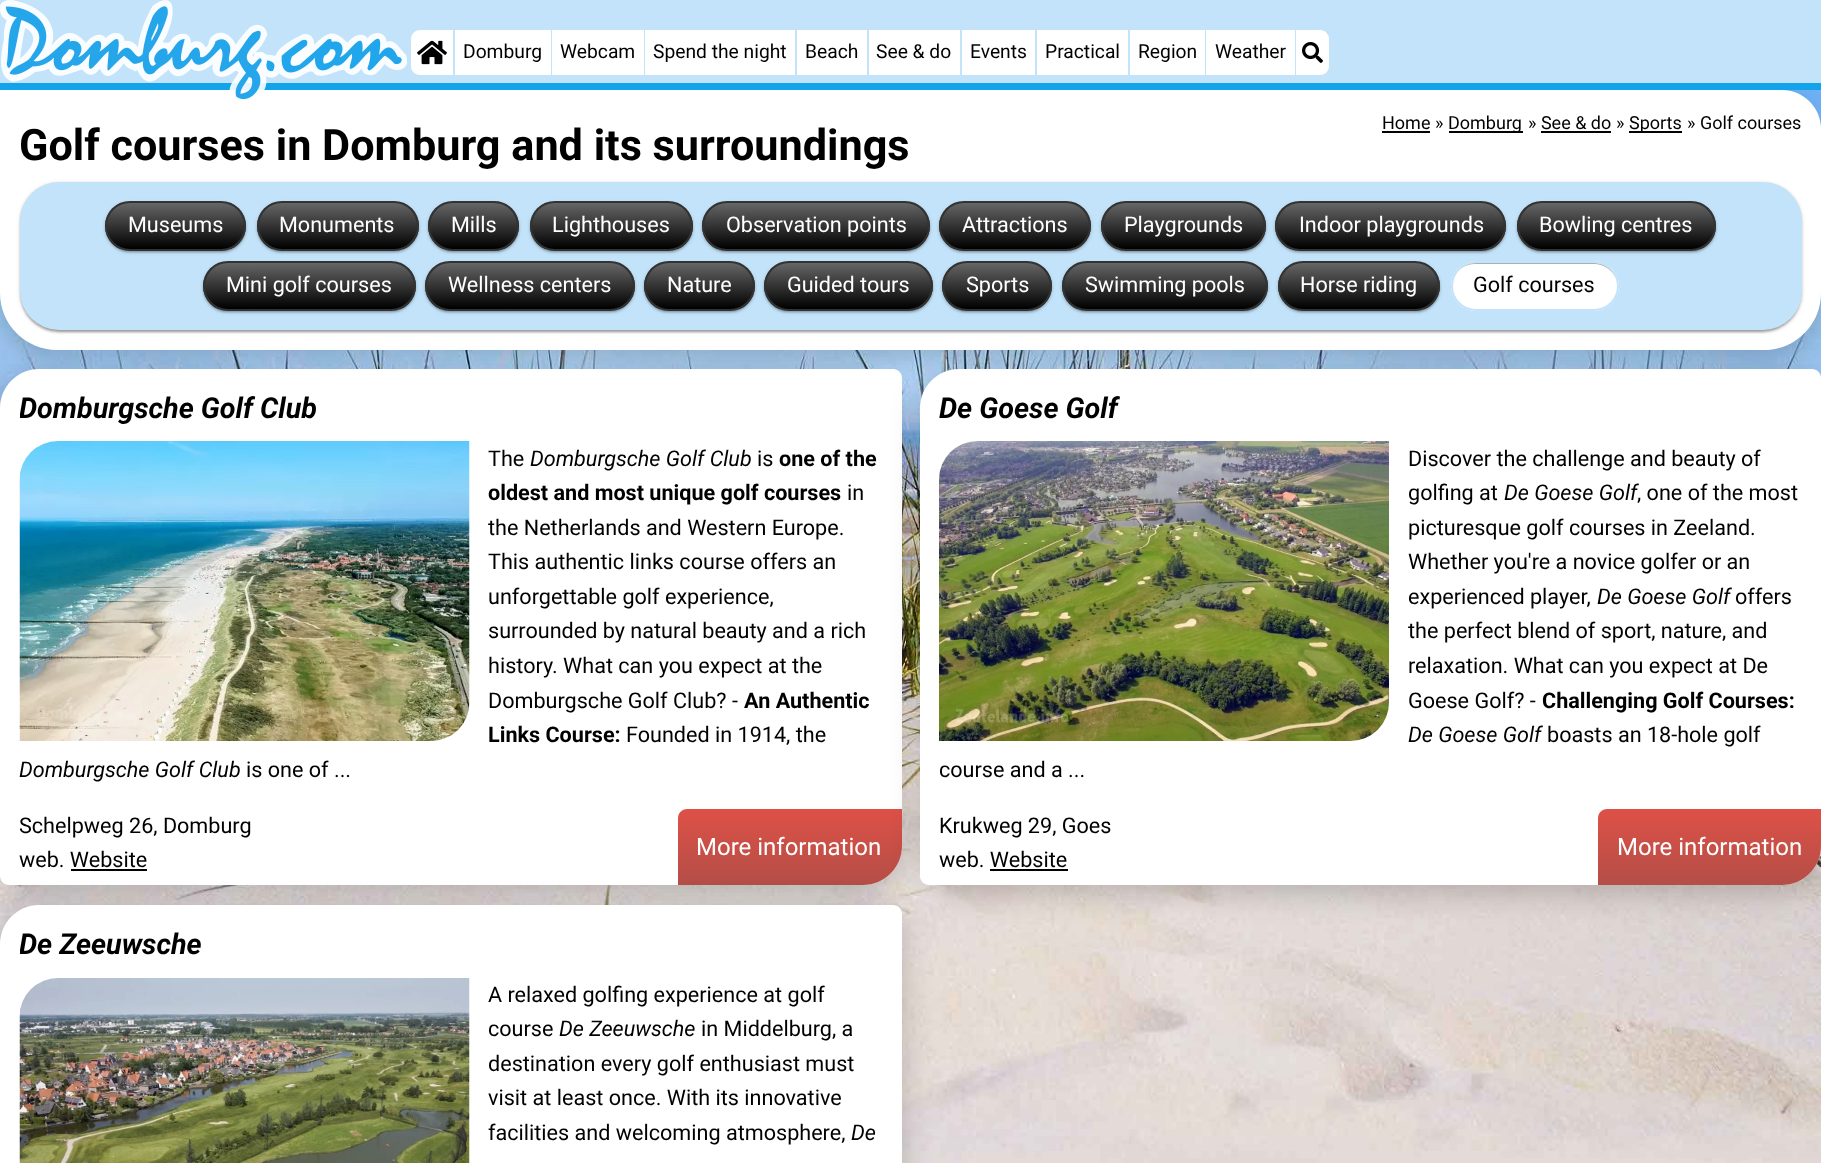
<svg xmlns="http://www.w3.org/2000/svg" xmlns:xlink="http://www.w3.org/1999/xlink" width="1821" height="1163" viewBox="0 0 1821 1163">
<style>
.cls-1{font:19.25px Roboto;fill:#000000}
.cls-2{font:18px Roboto;fill:#000000}
.cls-3{font:bold 43.2px Roboto;fill:#000000}
.cls-4{font:21.6px Roboto;fill:#ffffff}
.cls-5{font:21.6px Roboto;fill:#000000}
.cls-6{font:italic bold 28.75px Roboto;fill:#000000}
.cls-7{font:italic 21.6px Roboto;fill:#000000}
.cls-8{font:bold 21.6px Roboto;fill:#000000}
.cls-9{font:24px Roboto;fill:#ffffff}
</style>
<defs>
<clipPath id="clip1"><rect x="105" y="201" width="141" height="50" rx="25"/></clipPath>
<linearGradient id="g1" gradientUnits="userSpaceOnUse" x1="176" y1="203" x2="176" y2="249"><stop offset="0" stop-color="#666666"/><stop offset="1" stop-color="#000000"/></linearGradient>
<clipPath id="clip2"><rect x="257" y="201" width="162" height="50" rx="25"/></clipPath>
<linearGradient id="g2" gradientUnits="userSpaceOnUse" x1="338" y1="203" x2="338" y2="249"><stop offset="0" stop-color="#666666"/><stop offset="1" stop-color="#000000"/></linearGradient>
<clipPath id="clip3"><rect x="428" y="201" width="91" height="50" rx="25"/></clipPath>
<linearGradient id="g3" gradientUnits="userSpaceOnUse" x1="473" y1="203" x2="473" y2="249"><stop offset="0" stop-color="#666666"/><stop offset="1" stop-color="#000000"/></linearGradient>
<clipPath id="clip4"><rect x="530" y="201" width="163" height="50" rx="25"/></clipPath>
<linearGradient id="g4" gradientUnits="userSpaceOnUse" x1="611" y1="203" x2="611" y2="249"><stop offset="0" stop-color="#666666"/><stop offset="1" stop-color="#000000"/></linearGradient>
<clipPath id="clip5"><rect x="702" y="201" width="228" height="50" rx="25"/></clipPath>
<linearGradient id="g5" gradientUnits="userSpaceOnUse" x1="816" y1="203" x2="816" y2="249"><stop offset="0" stop-color="#666666"/><stop offset="1" stop-color="#000000"/></linearGradient>
<clipPath id="clip6"><rect x="939" y="201" width="152" height="50" rx="25"/></clipPath>
<linearGradient id="g6" gradientUnits="userSpaceOnUse" x1="1015" y1="203" x2="1015" y2="249"><stop offset="0" stop-color="#666666"/><stop offset="1" stop-color="#000000"/></linearGradient>
<clipPath id="clip7"><rect x="1101" y="201" width="165" height="50" rx="25"/></clipPath>
<linearGradient id="g7" gradientUnits="userSpaceOnUse" x1="1184" y1="203" x2="1184" y2="249"><stop offset="0" stop-color="#666666"/><stop offset="1" stop-color="#000000"/></linearGradient>
<clipPath id="clip8"><rect x="1275" y="201" width="231" height="50" rx="25"/></clipPath>
<linearGradient id="g8" gradientUnits="userSpaceOnUse" x1="1391" y1="203" x2="1391" y2="249"><stop offset="0" stop-color="#666666"/><stop offset="1" stop-color="#000000"/></linearGradient>
<clipPath id="clip9"><rect x="1517" y="201" width="199" height="50" rx="25"/></clipPath>
<linearGradient id="g9" gradientUnits="userSpaceOnUse" x1="1616" y1="203" x2="1616" y2="249"><stop offset="0" stop-color="#666666"/><stop offset="1" stop-color="#000000"/></linearGradient>
<clipPath id="clip10"><rect x="203" y="261" width="213" height="50" rx="25"/></clipPath>
<linearGradient id="g10" gradientUnits="userSpaceOnUse" x1="309" y1="263" x2="309" y2="309"><stop offset="0" stop-color="#666666"/><stop offset="1" stop-color="#000000"/></linearGradient>
<clipPath id="clip11"><rect x="425" y="261" width="210" height="50" rx="25"/></clipPath>
<linearGradient id="g11" gradientUnits="userSpaceOnUse" x1="530" y1="263" x2="530" y2="309"><stop offset="0" stop-color="#666666"/><stop offset="1" stop-color="#000000"/></linearGradient>
<clipPath id="clip12"><rect x="644" y="261" width="111" height="50" rx="25"/></clipPath>
<linearGradient id="g12" gradientUnits="userSpaceOnUse" x1="699" y1="263" x2="699" y2="309"><stop offset="0" stop-color="#666666"/><stop offset="1" stop-color="#000000"/></linearGradient>
<clipPath id="clip13"><rect x="764" y="261" width="169" height="50" rx="25"/></clipPath>
<linearGradient id="g13" gradientUnits="userSpaceOnUse" x1="848" y1="263" x2="848" y2="309"><stop offset="0" stop-color="#666666"/><stop offset="1" stop-color="#000000"/></linearGradient>
<clipPath id="clip14"><rect x="942" y="261" width="110" height="50" rx="25"/></clipPath>
<linearGradient id="g14" gradientUnits="userSpaceOnUse" x1="997" y1="263" x2="997" y2="309"><stop offset="0" stop-color="#666666"/><stop offset="1" stop-color="#000000"/></linearGradient>
<clipPath id="clip15"><rect x="1062" y="261" width="206" height="50" rx="25"/></clipPath>
<linearGradient id="g15" gradientUnits="userSpaceOnUse" x1="1165" y1="263" x2="1165" y2="309"><stop offset="0" stop-color="#666666"/><stop offset="1" stop-color="#000000"/></linearGradient>
<clipPath id="clip16"><rect x="1278" y="261" width="162" height="50" rx="25"/></clipPath>
<linearGradient id="g16" gradientUnits="userSpaceOnUse" x1="1359" y1="263" x2="1359" y2="309"><stop offset="0" stop-color="#666666"/><stop offset="1" stop-color="#000000"/></linearGradient>
<linearGradient id="g17" gradientUnits="userSpaceOnUse" x1="790" y1="809" x2="790" y2="885"><stop offset="0" stop-color="#de5147"/><stop offset="1" stop-color="#b34e47"/></linearGradient>
<linearGradient id="g18" gradientUnits="userSpaceOnUse" x1="1709" y1="809" x2="1709" y2="885"><stop offset="0" stop-color="#de5147"/><stop offset="1" stop-color="#b34e47"/></linearGradient>
<clipPath id="clip17"><path d="M20 389H873C878 389 882 393 882 398C882 416 867 431 849 431H20Z"/></clipPath>
<clipPath id="clip18"><path d="M20 924H873C878 924 882 928 882 933C882 952.5 866.5 968 847 968H20Z"/></clipPath>
</defs>
<rect width="100%" height="100%" fill="#ffffff"/>
<image xlink:href="image3.png" x="0" y="90" width="1821" height="1073"/>
<rect fill="#000000" fill-opacity="0.2" filter="blur(15px)" x="0" y="98" width="1821" height="259" rx="57"/>
<rect fill="#c2e3f9" x="0" y="0" width="1821" height="83"/>
<rect fill="#12a3eb" x="0" y="83" width="1821" height="7"/>
<path fill="#ffffff" d="M0 90H1782C1803.5 90 1821 107.5 1821 129V293C1821 324.5 1795.5 350 1764 350H57C25.5 350 0 324.5 0 293Z"/>
<image xlink:href="image0.png" x="0" y="0" width="407" height="100"/>
<path fill="#ffffff" d="M420 30H453V75H420C415 75 411 71 411 66V39C411 34 415 30 420 30Z"/>
<image xlink:href="image1.png" x="417" y="40" width="30" height="25"/>
<rect fill="#ffffff" x="455" y="30" width="96" height="45"/>
<rect fill="#ffffff" x="552" y="30" width="92" height="45"/>
<rect fill="#ffffff" x="645" y="30" width="150" height="45"/>
<rect fill="#ffffff" x="797" y="30" width="70" height="45"/>
<rect fill="#ffffff" x="869" y="30" width="91" height="45"/>
<rect fill="#ffffff" x="962" y="30" width="73" height="45"/>
<rect fill="#ffffff" x="1037" y="30" width="91" height="45"/>
<rect fill="#ffffff" x="1130" y="30" width="75" height="45"/>
<rect fill="#ffffff" x="1206" y="30" width="89" height="45"/>
<path fill="#ffffff" d="M1296 30H1320C1325 30 1329 34 1329 39V66C1329 71 1325 75 1320 75H1296Z"/>
<image xlink:href="image2.png" x="1302" y="42" width="21" height="21"/>
<rect fill="#000000" x="1382" y="131" width="48" height="2"/>
<rect fill="#000000" x="1449" y="131" width="74" height="2"/>
<rect fill="#000000" x="1541" y="131" width="70" height="2"/>
<rect fill="#000000" x="1629" y="131" width="53" height="2"/>
<rect fill="#000000" fill-opacity="0.12" filter="blur(2px)" x="20" y="183" width="1782" height="149" rx="39"/>
<rect fill="#000000" fill-opacity="0.14" filter="blur(1px)" x="20" y="183" width="1782" height="149" rx="39"/>
<rect fill="#000000" fill-opacity="0.2" filter="blur(1px)" x="21" y="186" width="1779" height="146" rx="38"/>
<rect fill="#c2e3f9" x="20" y="182" width="1782" height="148" rx="39"/>
<rect fill="#000000" fill-opacity="0.12" filter="blur(2px)" x="105" y="203" width="141" height="49" rx="24.5"/>
<rect fill="#000000" fill-opacity="0.14" filter="blur(1px)" x="105" y="203" width="141" height="49" rx="24.5"/>
<rect fill="#000000" fill-opacity="0.2" filter="blur(1px)" x="107" y="206" width="138" height="46" rx="23"/>
<g clip-path="url(#clip1)">
<rect fill="url(#g1)" x="105" y="203" width="141" height="46"/>
</g>
<rect fill="none" stroke="#333333" stroke-width="2" x="106" y="202" width="139" height="48" rx="24"/>
<rect fill="#000000" fill-opacity="0.12" filter="blur(2px)" x="257" y="203" width="162" height="49" rx="24.5"/>
<rect fill="#000000" fill-opacity="0.14" filter="blur(1px)" x="257" y="203" width="162" height="49" rx="24.5"/>
<rect fill="#000000" fill-opacity="0.2" filter="blur(1px)" x="258" y="206" width="159" height="46" rx="23"/>
<g clip-path="url(#clip2)">
<rect fill="url(#g2)" x="257" y="203" width="162" height="46"/>
</g>
<rect fill="none" stroke="#333333" stroke-width="2" x="258" y="202" width="160" height="48" rx="24"/>
<rect fill="#000000" fill-opacity="0.12" filter="blur(2px)" x="428" y="203" width="91" height="49" rx="24.5"/>
<rect fill="#000000" fill-opacity="0.14" filter="blur(1px)" x="428" y="203" width="91" height="49" rx="24.5"/>
<rect fill="#000000" fill-opacity="0.2" filter="blur(1px)" x="429" y="206" width="89" height="46" rx="23"/>
<g clip-path="url(#clip3)">
<rect fill="url(#g3)" x="428" y="203" width="91" height="46"/>
</g>
<rect fill="none" stroke="#333333" stroke-width="2" x="429" y="202" width="89" height="48" rx="24"/>
<rect fill="#000000" fill-opacity="0.12" filter="blur(2px)" x="530" y="203" width="163" height="49" rx="24.5"/>
<rect fill="#000000" fill-opacity="0.14" filter="blur(1px)" x="530" y="203" width="163" height="49" rx="24.5"/>
<rect fill="#000000" fill-opacity="0.2" filter="blur(1px)" x="531" y="206" width="161" height="46" rx="23"/>
<g clip-path="url(#clip4)">
<rect fill="url(#g4)" x="530" y="203" width="163" height="46"/>
</g>
<rect fill="none" stroke="#333333" stroke-width="2" x="531" y="202" width="161" height="48" rx="24"/>
<rect fill="#000000" fill-opacity="0.12" filter="blur(2px)" x="702" y="203" width="228" height="49" rx="24.5"/>
<rect fill="#000000" fill-opacity="0.14" filter="blur(1px)" x="702" y="203" width="228" height="49" rx="24.5"/>
<rect fill="#000000" fill-opacity="0.2" filter="blur(1px)" x="704" y="206" width="225" height="46" rx="23"/>
<g clip-path="url(#clip5)">
<rect fill="url(#g5)" x="702" y="203" width="228" height="46"/>
</g>
<rect fill="none" stroke="#333333" stroke-width="2" x="703" y="202" width="226" height="48" rx="24"/>
<rect fill="#000000" fill-opacity="0.12" filter="blur(2px)" x="939" y="203" width="152" height="49" rx="24.5"/>
<rect fill="#000000" fill-opacity="0.14" filter="blur(1px)" x="939" y="203" width="152" height="49" rx="24.5"/>
<rect fill="#000000" fill-opacity="0.2" filter="blur(1px)" x="941" y="206" width="148" height="46" rx="23"/>
<g clip-path="url(#clip6)">
<rect fill="url(#g6)" x="939" y="203" width="152" height="46"/>
</g>
<rect fill="none" stroke="#333333" stroke-width="2" x="940" y="202" width="150" height="48" rx="24"/>
<rect fill="#000000" fill-opacity="0.12" filter="blur(2px)" x="1101" y="203" width="165" height="49" rx="24.5"/>
<rect fill="#000000" fill-opacity="0.14" filter="blur(1px)" x="1101" y="203" width="165" height="49" rx="24.5"/>
<rect fill="#000000" fill-opacity="0.2" filter="blur(1px)" x="1103" y="206" width="162" height="46" rx="23"/>
<g clip-path="url(#clip7)">
<rect fill="url(#g7)" x="1101" y="203" width="165" height="46"/>
</g>
<rect fill="none" stroke="#333333" stroke-width="2" x="1102" y="202" width="163" height="48" rx="24"/>
<rect fill="#000000" fill-opacity="0.12" filter="blur(2px)" x="1275" y="203" width="231" height="49" rx="24.5"/>
<rect fill="#000000" fill-opacity="0.14" filter="blur(1px)" x="1275" y="203" width="231" height="49" rx="24.5"/>
<rect fill="#000000" fill-opacity="0.2" filter="blur(1px)" x="1277" y="206" width="228" height="46" rx="23"/>
<g clip-path="url(#clip8)">
<rect fill="url(#g8)" x="1275" y="203" width="231" height="46"/>
</g>
<rect fill="none" stroke="#333333" stroke-width="2" x="1276" y="202" width="229" height="48" rx="24"/>
<rect fill="#000000" fill-opacity="0.12" filter="blur(2px)" x="1517" y="203" width="199" height="49" rx="24.5"/>
<rect fill="#000000" fill-opacity="0.14" filter="blur(1px)" x="1517" y="203" width="199" height="49" rx="24.5"/>
<rect fill="#000000" fill-opacity="0.2" filter="blur(1px)" x="1518" y="206" width="197" height="46" rx="23"/>
<g clip-path="url(#clip9)">
<rect fill="url(#g9)" x="1517" y="203" width="199" height="46"/>
</g>
<rect fill="none" stroke="#333333" stroke-width="2" x="1518" y="202" width="197" height="48" rx="24"/>
<rect fill="#000000" fill-opacity="0.12" filter="blur(2px)" x="203" y="263" width="213" height="49" rx="24.5"/>
<rect fill="#000000" fill-opacity="0.14" filter="blur(1px)" x="203" y="263" width="213" height="49" rx="24.5"/>
<rect fill="#000000" fill-opacity="0.2" filter="blur(1px)" x="204" y="266" width="210" height="46" rx="23"/>
<g clip-path="url(#clip10)">
<rect fill="url(#g10)" x="203" y="263" width="213" height="46"/>
</g>
<rect fill="none" stroke="#333333" stroke-width="2" x="204" y="262" width="211" height="48" rx="24"/>
<rect fill="#000000" fill-opacity="0.12" filter="blur(2px)" x="425" y="263" width="210" height="49" rx="24.5"/>
<rect fill="#000000" fill-opacity="0.14" filter="blur(1px)" x="425" y="263" width="210" height="49" rx="24.5"/>
<rect fill="#000000" fill-opacity="0.2" filter="blur(1px)" x="426" y="266" width="207" height="46" rx="23"/>
<g clip-path="url(#clip11)">
<rect fill="url(#g11)" x="425" y="263" width="210" height="46"/>
</g>
<rect fill="none" stroke="#333333" stroke-width="2" x="426" y="262" width="208" height="48" rx="24"/>
<rect fill="#000000" fill-opacity="0.12" filter="blur(2px)" x="644" y="263" width="111" height="49" rx="24.5"/>
<rect fill="#000000" fill-opacity="0.14" filter="blur(1px)" x="644" y="263" width="111" height="49" rx="24.5"/>
<rect fill="#000000" fill-opacity="0.2" filter="blur(1px)" x="645" y="266" width="108" height="46" rx="23"/>
<g clip-path="url(#clip12)">
<rect fill="url(#g12)" x="644" y="263" width="111" height="46"/>
</g>
<rect fill="none" stroke="#333333" stroke-width="2" x="645" y="262" width="109" height="48" rx="24"/>
<rect fill="#000000" fill-opacity="0.12" filter="blur(2px)" x="764" y="263" width="169" height="49" rx="24.5"/>
<rect fill="#000000" fill-opacity="0.14" filter="blur(1px)" x="764" y="263" width="169" height="49" rx="24.5"/>
<rect fill="#000000" fill-opacity="0.2" filter="blur(1px)" x="765" y="266" width="167" height="46" rx="23"/>
<g clip-path="url(#clip13)">
<rect fill="url(#g13)" x="764" y="263" width="169" height="46"/>
</g>
<rect fill="none" stroke="#333333" stroke-width="2" x="765" y="262" width="167" height="48" rx="24"/>
<rect fill="#000000" fill-opacity="0.12" filter="blur(2px)" x="942" y="263" width="110" height="49" rx="24.5"/>
<rect fill="#000000" fill-opacity="0.14" filter="blur(1px)" x="942" y="263" width="110" height="49" rx="24.5"/>
<rect fill="#000000" fill-opacity="0.2" filter="blur(1px)" x="944" y="266" width="106" height="46" rx="23"/>
<g clip-path="url(#clip14)">
<rect fill="url(#g14)" x="942" y="263" width="110" height="46"/>
</g>
<rect fill="none" stroke="#333333" stroke-width="2" x="943" y="262" width="108" height="48" rx="24"/>
<rect fill="#000000" fill-opacity="0.12" filter="blur(2px)" x="1062" y="263" width="206" height="49" rx="24.5"/>
<rect fill="#000000" fill-opacity="0.14" filter="blur(1px)" x="1062" y="263" width="206" height="49" rx="24.5"/>
<rect fill="#000000" fill-opacity="0.2" filter="blur(1px)" x="1064" y="266" width="202" height="46" rx="23"/>
<g clip-path="url(#clip15)">
<rect fill="url(#g15)" x="1062" y="263" width="206" height="46"/>
</g>
<rect fill="none" stroke="#333333" stroke-width="2" x="1063" y="262" width="204" height="48" rx="24"/>
<rect fill="#000000" fill-opacity="0.12" filter="blur(2px)" x="1278" y="263" width="162" height="49" rx="24.5"/>
<rect fill="#000000" fill-opacity="0.14" filter="blur(1px)" x="1278" y="263" width="162" height="49" rx="24.5"/>
<rect fill="#000000" fill-opacity="0.2" filter="blur(1px)" x="1280" y="266" width="159" height="46" rx="23"/>
<g clip-path="url(#clip16)">
<rect fill="url(#g16)" x="1278" y="263" width="162" height="46"/>
</g>
<rect fill="none" stroke="#333333" stroke-width="2" x="1279" y="262" width="160" height="48" rx="24"/>
<rect fill="#ffffff" x="1451" y="261" width="168" height="50" rx="25"/>
<path fill="#dbdbdb" d="M1475 264H1594C1607 264 1617 274 1617 286C1617 273 1607 263 1594 263H1475C1462 263 1452 273 1452 286C1452 274 1462 264 1475 264Z"/>
<path fill="#000000" fill-opacity="0.2" d="M1475 264H1594C1603 264 1612 270 1616 278C1612 269 1604 263 1594 263H1475C1467 263 1460 267 1456 273C1461 267 1468 264 1475 264Z"/>
<rect fill="none" stroke="#c2e3f9" stroke-width="2" x="1452" y="262" width="166" height="48" rx="24"/>
<rect fill="#000000" fill-opacity="0.2" filter="blur(15px)" x="0" y="377" width="902" height="516" rx="39"/>
<path fill="#ffffff" d="M39 369H893C898 369 902 373 902 378V846C902 867.5 884.5 885 863 885H9C4 885 0 881 0 876V408C0 386.5 17.5 369 39 369Z"/>
<image xlink:href="image4.png" x="19" y="441" width="451" height="300"/>
<path fill="url(#g17)" d="M687 809H902V846C902 867.5 884.5 885 863 885H678V818C678 813 682 809 687 809Z"/>
<rect fill="#000000" x="71" y="869" width="76" height="2"/>
<rect fill="#000000" fill-opacity="0.2" filter="blur(15px)" x="920" y="377" width="901" height="516" rx="39"/>
<path fill="#ffffff" d="M959 369H1812C1817 369 1821 373 1821 378V846C1821 867.5 1803.5 885 1782 885H929C924 885 920 881 920 876V408C920 386.5 937.5 369 959 369Z"/>
<image xlink:href="image5.png" x="939" y="441" width="450" height="300"/>
<path fill="url(#g18)" d="M1607 809H1821V846C1821 867.5 1803.5 885 1782 885H1598V818C1598 813 1602 809 1607 809Z"/>
<rect fill="#000000" x="990" y="869" width="78" height="2"/>
<rect fill="#000000" fill-opacity="0.2" filter="blur(15px)" x="0" y="912" width="902" height="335" rx="39"/>
<path fill="#ffffff" d="M39 905H893C898 905 902 909 902 914V1163C902 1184.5 884.5 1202 863 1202H9C4 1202 0 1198 0 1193V944C0 922.5 17.5 905 39 905Z"/>
<image xlink:href="image6.png" x="19" y="978" width="451" height="185"/>
<text class="cls-1" x="463" y="58">Domburg</text>
<text class="cls-1" x="560" y="58">Webcam</text>
<text class="cls-1" x="653" y="58">Spend the night</text>
<text class="cls-1" x="805" y="58">Beach</text>
<text class="cls-1" x="876" y="58">See &amp; do</text>
<text class="cls-1" x="970" y="58">Events</text>
<text class="cls-1" x="1045" y="58">Practical</text>
<text class="cls-1" x="1138" y="58">Region</text>
<text class="cls-1" x="1215" y="58">Weather</text>
<text class="cls-2" x="1382" y="129">Home</text>
<text class="cls-2" x="1435" y="129">»</text>
<text class="cls-2" x="1448" y="129">Domburg</text>
<text class="cls-2" x="1528" y="129">» See &amp; do</text>
<text class="cls-2" x="1616" y="129">»</text>
<text class="cls-2" x="1629" y="129">Sports</text>
<text class="cls-2" x="1687" y="129">» Golf courses</text>
<text class="cls-3" x="19" y="160">Golf courses in Domburg and its surroundings</text>
<text class="cls-4" x="128" y="232">Museums</text>
<text class="cls-4" x="279" y="232">Monuments</text>
<text class="cls-4" x="451" y="232">Mills</text>
<text class="cls-4" x="552" y="232">Lighthouses</text>
<text class="cls-4" x="726" y="232">Observation points</text>
<text class="cls-4" x="962" y="232">Attractions</text>
<text class="cls-4" x="1124" y="232">Playgrounds</text>
<text class="cls-4" x="1299" y="232">Indoor playgrounds</text>
<text class="cls-4" x="1539" y="232">Bowling centres</text>
<text class="cls-4" x="226" y="292">Mini golf courses</text>
<text class="cls-4" x="448" y="292">Wellness centers</text>
<text class="cls-4" x="667" y="292">Nature</text>
<text class="cls-4" x="787" y="292">Guided tours</text>
<text class="cls-4" x="966" y="292">Sports</text>
<text class="cls-4" x="1085" y="292">Swimming pools</text>
<text class="cls-4" x="1300" y="292">Horse riding</text>
<text class="cls-5" x="1473" y="292">Golf courses</text>
<g clip-path="url(#clip17)">
<text class="cls-6" x="19" y="418">Domburgsche Golf Club</text>
</g>
<text class="cls-5" x="488" y="466">The</text>
<text class="cls-7" x="530" y="466">Domburgsche Golf Club</text>
<text class="cls-5" x="757" y="466">is</text>
<text class="cls-8" x="779" y="466">one of the</text>
<text class="cls-8" x="488" y="500">oldest and most unique golf courses</text>
<text class="cls-5" x="847" y="500">in</text>
<text class="cls-5"><tspan x="488" y="535">the Netherlands and Western Europe.</tspan><tspan x="488" y="569">This authentic links course offers an</tspan><tspan x="488" y="604">unforgettable golf experience,</tspan><tspan x="488" y="638">surrounded by natural beauty and a rich</tspan><tspan x="488" y="673">history. What can you expect at the</tspan><tspan x="488" y="708">Domburgsche Golf Club? -</tspan></text>
<text class="cls-8" x="744" y="708">An Authentic</text>
<text class="cls-8" x="488" y="742">Links Course:</text>
<text class="cls-5" x="626" y="742">Founded in 1914, the</text>
<text class="cls-7" x="19" y="777">Domburgsche Golf Club</text>
<text class="cls-5" x="246" y="777">is one of ...</text>
<text class="cls-5" x="19" y="833">Schelpweg 26, Domburg</text>
<text class="cls-9" x="696" y="855">More information</text>
<text class="cls-5" x="19" y="867">web. Website</text>
<text class="cls-6" x="939" y="418">De Goese Golf</text>
<text class="cls-5"><tspan x="1408" y="466">Discover the challenge and beauty of</tspan><tspan x="1408" y="500">golfing at</tspan></text>
<text class="cls-7" x="1504" y="500">De Goese Golf</text>
<text class="cls-5" x="1637" y="500">, one of the most</text>
<text class="cls-5"><tspan x="1408" y="535">picturesque golf courses in Zeeland.</tspan><tspan x="1408" y="569">Whether you're a novice golfer or an</tspan><tspan x="1408" y="604">experienced player,</tspan></text>
<text class="cls-7" x="1597" y="604">De Goese Golf</text>
<text class="cls-5" x="1735" y="604">offers</text>
<text class="cls-5"><tspan x="1408" y="638">the perfect blend of sport, nature, and</tspan><tspan x="1408" y="673">relaxation. What can you expect at De</tspan><tspan x="1408" y="708">Goese Golf? -</tspan></text>
<text class="cls-8" x="1542" y="708">Challenging Golf Courses:</text>
<text class="cls-7" x="1408" y="742">De Goese Golf</text>
<text class="cls-5" x="1547" y="742">boasts an 18-hole golf</text>
<text class="cls-5" x="939" y="777">course and a ...</text>
<text class="cls-5" x="939" y="833">Krukweg 29, Goes</text>
<text class="cls-9" x="1617" y="855">More information</text>
<text class="cls-5" x="939" y="867">web. Website</text>
<g clip-path="url(#clip18)">
<text class="cls-6" x="19" y="954">De Zeeuwsche</text>
</g>
<text class="cls-5"><tspan x="488" y="1002">A relaxed golfing experience at golf</tspan><tspan x="488" y="1036">course</tspan></text>
<text class="cls-7" x="559" y="1036">De Zeeuwsche</text>
<text class="cls-5" x="701" y="1036">in Middelburg, a</text>
<text class="cls-5"><tspan x="488" y="1071">destination every golf enthusiast must</tspan><tspan x="488" y="1105">visit at least once. With its innovative</tspan><tspan x="488" y="1140">facilities and welcoming atmosphere,</tspan></text>
<text class="cls-7" x="851" y="1140">De</text>
</svg>
